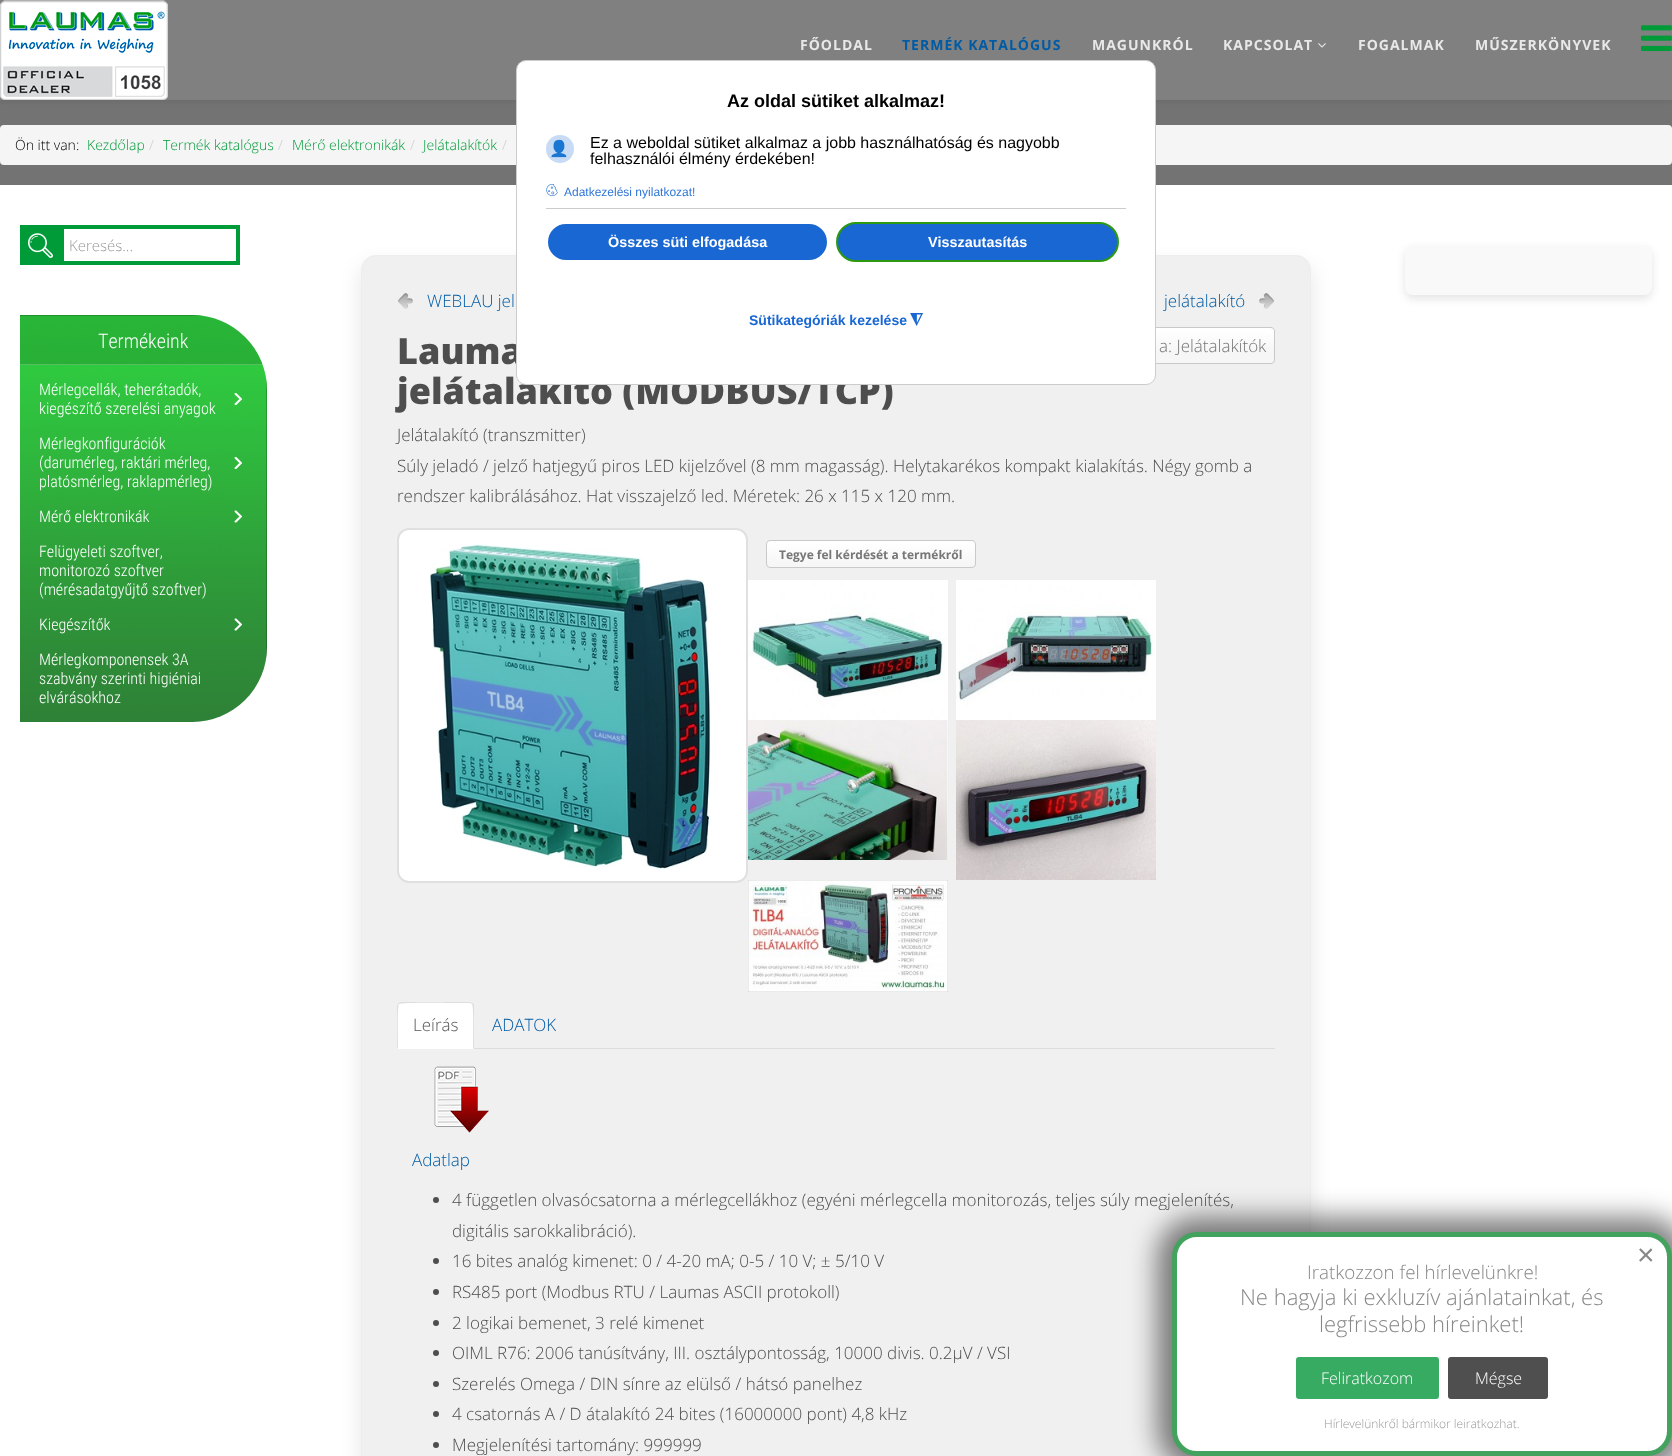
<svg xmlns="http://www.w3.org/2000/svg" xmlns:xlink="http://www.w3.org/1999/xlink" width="1672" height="1456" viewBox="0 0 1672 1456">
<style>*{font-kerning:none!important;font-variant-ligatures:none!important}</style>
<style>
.cls-1{font:bold 14px Open Sans;letter-spacing:1px;fill:#e8e8e8}
.cls-2{font:bold 14px Open Sans;letter-spacing:1px;fill:#005ba4}
.cls-3{font:300 14px Open Sans;fill:#000000}
.cls-4{font:300 14px Open Sans;fill:#009b39}
.cls-5{font:300 14px Open Sans;fill:#cccccc}
.cls-6{font:300 15px Open Sans;fill:#999999}
.cls-7{font:300 20px Roboto Condensed;fill:#ffffff}
.cls-8{font:300 16px Roboto Condensed;fill:#ffffff}
.cls-9{font:300 17px Open Sans;fill:#005ba4}
.cls-10{font:800 36px Open Sans;fill:#4e4e4e}
.cls-11{font:300 17px Open Sans;fill:#777777}
.cls-12{font:300 17px Open Sans;fill:#4e4e4e}
.cls-13{font:bold 12px Open Sans;fill:#777777}
.cls-14{font:300 17px Open Sans;fill:#555555}
.cls-15{font:bold 18px Liberation Sans;fill:#000000}
.cls-16{font:16px Noto Color Emoji;fill:#000000}
.cls-17{font:16px Liberation Sans;fill:#000000}
.cls-18{font:12px Liberation Sans;fill:#3076d7}
.cls-19{font:bold 14.4px Liberation Sans;fill:#ffffff}
.cls-20{font:bold 14px Liberation Sans;fill:#1967d2}
.cls-21{font:bold 16px DejaVu Sans;fill:#1967d2}
.cls-22{font:30px Liberation Sans;fill:#888888}
.cls-23{font:300 18.75px Open Sans;fill:#888888}
.cls-24{font:300 22px Open Sans;fill:#888888}
.cls-25{font:300 16px Open Sans;fill:#ffffff}
.cls-26{font:300 12px Open Sans;fill:#999999}
</style>
<defs>
<clipPath id="clip1"><path d="M20 315H192C233.5 315 267 348.5 267 390V647C267 688.5 233.5 722 192 722H20Z"/></clipPath>
</defs>
<rect width="100%" height="100%" fill="#ffffff"/>
<rect fill="#737373" x="0" y="100" width="1672" height="85"/>
<rect fill="#000000" fill-opacity="0.05" filter="blur(1.5px)" x="0" y="3" width="1672" height="100"/>
<rect fill="#808080" x="0" y="0" width="1672" height="100"/>
<image xlink:href="image0.png" x="0" y="0" width="168" height="100"/>
<image xlink:href="image1.png" x="1318" y="43" width="8" height="5"/>
<image xlink:href="image2.png" x="1641" y="25" width="31" height="26"/>
<rect fill="#f5f5f5" x="0" y="125" width="1672" height="40" rx="4"/>
<rect fill="#009b39" x="20" y="225" width="40" height="40"/>
<image xlink:href="image3.png" x="28" y="233" width="25" height="25"/>
<rect fill="none" stroke="#009b39" stroke-width="4" x="62" y="227" width="176" height="36"/>
<image xlink:href="image4.png" x="20" y="315" width="247" height="407"/>
<path fill="#000000" fill-opacity="0.11" d="M20 315H192C233.5 315 267 348.5 267 390V647C267 688.5 233.5 722 192 722H20Z"/>
<g clip-path="url(#clip1)">
<rect fill="#000000" fill-opacity="0.21" x="266" y="378" width="1" height="281"/>
<rect fill="#000000" fill-opacity="0.13" x="20" y="315" width="243" height="50"/>
<rect fill="#000000" fill-opacity="0.2" x="20" y="315" width="184" height="1"/>
<rect fill="#ffffff" fill-opacity="0.2" x="20" y="364" width="247" height="1"/>
</g>
<image xlink:href="image5.png" x="234" y="393" width="8" height="12"/>
<image xlink:href="image6.png" x="234" y="457" width="8" height="12"/>
<image xlink:href="image7.png" x="234" y="510" width="8" height="13"/>
<image xlink:href="image8.png" x="234" y="618" width="8" height="13"/>
<rect fill="#000000" fill-opacity="0.1" filter="blur(10px)" x="361" y="265" width="950" height="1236" rx="15"/>
<rect fill="#f0f0f0" stroke="#ededed" x="361.5" y="255.5" width="949" height="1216" rx="14.5"/>
<image xlink:href="image9.png" x="398" y="293" width="15" height="16"/>
<image xlink:href="image10.png" x="1259" y="293" width="15" height="16"/>
<image xlink:href="image11.png" x="1156" y="328" width="119" height="36"/>
<rect fill="none" stroke="#cac9c9" x="1112.5" y="327.5" width="162" height="36" rx="3.5"/>
<rect fill="#ffffff" stroke="#e0e0e0" stroke-width="2" x="398" y="529" width="349" height="353" rx="11"/>
<image xlink:href="image12.png" x="430" y="544" width="281" height="325"/>
<image xlink:href="image13.png" x="766" y="541" width="210" height="27"/>
<rect fill="none" stroke="#cac9c9" x="766.5" y="540.5" width="209" height="27" rx="3.5"/>
<image xlink:href="image14.png" x="748" y="580" width="200" height="140"/>
<image xlink:href="image15.png" x="956" y="580" width="200" height="140"/>
<image xlink:href="image16.png" x="748" y="720" width="200" height="140"/>
<image xlink:href="image17.png" x="956" y="720" width="200" height="160"/>
<image xlink:href="image18.png" x="748" y="880" width="200" height="112"/>
<rect fill="#dddddd" x="474" y="1048" width="801" height="1"/>
<path fill="#ffffff" d="M401 1002H470C472 1002 474 1004 474 1006V1049H397V1006C397 1004 399 1002 401 1002Z"/>
<path fill="#dddddd" d="M401 1002L398 1003L399 1004C401 1002 452 1003 458 1003H470L472 1004L473 1003L470 1002Z"/>
<path fill="#dddddd" d="M474 1049V1006C474 1005 474 1004 473 1003L472 1004C474 1006 473 1043 473 1048Z"/>
<path fill="#dddddd" d="M397 1049L398 1048C398 1043 397 1006 399 1004L398 1003L397 1006Z"/>
<image xlink:href="image19.png" x="434" y="1066" width="55" height="67"/>
<circle fill="#4e4e4e" cx="436" cy="1200" r="3"/>
<circle fill="#4e4e4e" cx="436" cy="1261" r="3"/>
<circle fill="#4e4e4e" cx="436" cy="1292" r="3"/>
<circle fill="#4e4e4e" cx="436" cy="1323" r="3"/>
<circle fill="#4e4e4e" cx="436" cy="1353" r="3"/>
<circle fill="#4e4e4e" cx="436" cy="1384" r="3"/>
<circle fill="#4e4e4e" cx="436" cy="1414" r="3"/>
<circle fill="#4e4e4e" cx="436" cy="1445" r="3"/>
<rect fill="#000000" fill-opacity="0.1" filter="blur(4px)" x="1405" y="249" width="247" height="50" rx="8"/>
<rect fill="#f9f9f9" x="1405" y="245" width="247" height="50" rx="8"/>
<rect fill="#000000" fill-opacity="0.5" filter="blur(13.5px)" x="1157" y="1217" width="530" height="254" rx="40"/>
<rect fill="#ffffff" stroke="#43a35e" stroke-width="5" x="1174.5" y="1234.5" width="495" height="219" rx="22.5"/>
<rect fill="#37ab62" x="1296" y="1357" width="143" height="42" rx="3"/>
<rect fill="#4f4f4f" x="1448" y="1357" width="100" height="42" rx="3"/>
<text class="cls-1" x="800" y="50">FŐOLDAL</text>
<text class="cls-2" x="902" y="50">TERMÉK KATALÓGUS</text>
<text class="cls-1" x="1092" y="50">MAGUNKRÓL</text>
<text class="cls-1" x="1223" y="50">KAPCSOLAT</text>
<text class="cls-1" x="1358" y="50">FOGALMAK</text>
<text class="cls-1" x="1475" y="50">MŰSZERKÖNYVEK</text>
<text class="cls-3" x="15" y="150">Ön itt van:</text>
<text class="cls-4" x="87" y="150">Kezdőlap</text>
<text class="cls-5" x="149" y="150">/</text>
<text class="cls-4" x="163" y="150">Termék katalógus</text>
<text class="cls-5" x="278" y="150">/</text>
<text class="cls-4" x="292" y="150">Mérő elektronikák</text>
<text class="cls-5" x="410" y="150">/</text>
<text class="cls-4" x="423" y="150">Jelátalakítók</text>
<text class="cls-5" x="502" y="150">/</text>
<text class="cls-6" x="69" y="251">Keresés...</text>
<text class="cls-7" x="98" y="348">Termékeink</text>
<text class="cls-8"><tspan x="39" y="395">Mérlegcellák, teherátadók,</tspan><tspan x="39" y="414">kiegészítő szerelési anyagok</tspan></text>
<text class="cls-8"><tspan x="39" y="449">Mérlegkonfigurációk</tspan><tspan x="39" y="468">(darumérleg, raktári mérleg,</tspan><tspan x="39" y="487">platósmérleg, raklapmérleg)</tspan></text>
<text class="cls-8" x="39" y="522">Mérő elektronikák</text>
<text class="cls-8"><tspan x="39" y="557">Felügyeleti szoftver,</tspan><tspan x="39" y="576">monitorozó szoftver</tspan><tspan x="39" y="595">(mérésadatgyűjtő szoftver)</tspan></text>
<text class="cls-8" x="39" y="630">Kiegészítők</text>
<text class="cls-8"><tspan x="39" y="665">Mérlegkomponensek 3A</tspan><tspan x="39" y="684">szabvány szerinti higiéniai</tspan><tspan x="39" y="703">elvárásokhoz</tspan></text>
<text class="cls-9" x="427" y="307">WEBLAU jel</text>
<text class="cls-9" x="1164" y="307">jelátalakító</text>
<text class="cls-10"><tspan x="397" y="364">Lauma</tspan><tspan x="397" y="404">jelátalakító (MODBUS/TCP)</tspan></text>
<text class="cls-11" x="1159" y="352">a: Jelátalakítók</text>
<text class="cls-12"><tspan x="397" y="441">Jelátalakító (transzmitter)</tspan><tspan x="397" y="472">Súly jeladó / jelző hatjegyű piros LED kijelzővel (8 mm magasság). Helytakarékos kompakt kialakítás. Négy gomb a</tspan><tspan x="397" y="502">rendszer kalibrálásához. Hat visszajelző led. Méretek: 26 x 115 x 120 mm.</tspan></text>
<text class="cls-13" x="779" y="559">Tegye fel kérdését a termékről</text>
<text class="cls-14" x="413" y="1031">Leírás</text>
<text class="cls-9" x="492" y="1031">ADATOK</text>
<text class="cls-9" x="412" y="1166">Adatlap</text>
<text class="cls-12"><tspan x="452" y="1206">4 független olvasócsatorna a mérlegcellákhoz (egyéni mérlegcella monitorozás, teljes súly megjelenítés,</tspan><tspan x="452" y="1237">digitális sarokkalibráció).</tspan><tspan x="452" y="1267">16 bites analóg kimenet: 0 / 4-20 mA; 0-5 / 10 V; ± 5/10 V</tspan><tspan x="452" y="1298">RS485 port (Modbus RTU / Laumas ASCII protokoll)</tspan><tspan x="452" y="1329">2 logikai bemenet, 3 relé kimenet</tspan><tspan x="452" y="1359">OIML R76: 2006 tanúsítvány, III. osztálypontosság, 10000 divis. 0.2μV / VSI</tspan><tspan x="452" y="1390">Szerelés Omega / DIN sínre az elülső / hátsó panelhez</tspan><tspan x="452" y="1420">4 csatornás A / D átalakító 24 bites (16000000 pont) 4,8 kHz</tspan><tspan x="452" y="1451">Megjelenítési tartomány: 999999</tspan></text>
<rect fill="#ffffff" stroke="#cccccc" x="516.5" y="60.5" width="639" height="324" rx="9.5"/>
<text class="cls-15" x="727" y="107">Az oldal sütiket alkalmaz!</text>
<circle fill="#c8dbf4" cx="560" cy="149" r="14"/>
<text class="cls-16" x="549" y="154">👤</text>
<text class="cls-17"><tspan x="590" y="148">Ez a weboldal sütiket alkalmaz a jobb használhatóság és nagyobb</tspan><tspan x="590" y="164">felhasználói élmény érdekében!</tspan></text>
<image xlink:href="image20.png" x="546" y="184" width="12" height="12"/>
<text class="cls-18" x="564" y="196">Adatkezelési nyilatkozat!</text>
<rect fill="#cccccc" x="546" y="208" width="580" height="1"/>
<rect fill="#1967d2" stroke="#ffffff" stroke-width="2" x="547" y="223" width="281" height="38" rx="19"/>
<text class="cls-19" x="608" y="247">Összes süti elfogadása</text>
<rect fill="#1967d2" stroke="#2c9911" stroke-width="2" x="837" y="223" width="281" height="38" rx="19"/>
<text class="cls-19" x="928" y="247">Visszautasítás</text>
<text class="cls-20" x="749" y="325">Sütikategóriák kezelése</text>
<text class="cls-21" x="923" y="315" transform="rotate(180 923 315)">◮</text>
<text class="cls-22" x="1637" y="1265">×</text>
<text class="cls-23" x="1307" y="1279">Iratkozzon fel hírlevelünkre!</text>
<text class="cls-24" x="1240" y="1305">Ne hagyja ki exkluzív ajánlatainkat, és</text>
<text class="cls-24" x="1319" y="1332">legfrissebb híreinket!</text>
<text class="cls-25" x="1321" y="1384">Feliratkozom</text>
<text class="cls-25" x="1475" y="1384">Mégse</text>
<text class="cls-26" x="1324" y="1428">Hírlevelünkről bármikor leiratkozhat.</text>
</svg>
